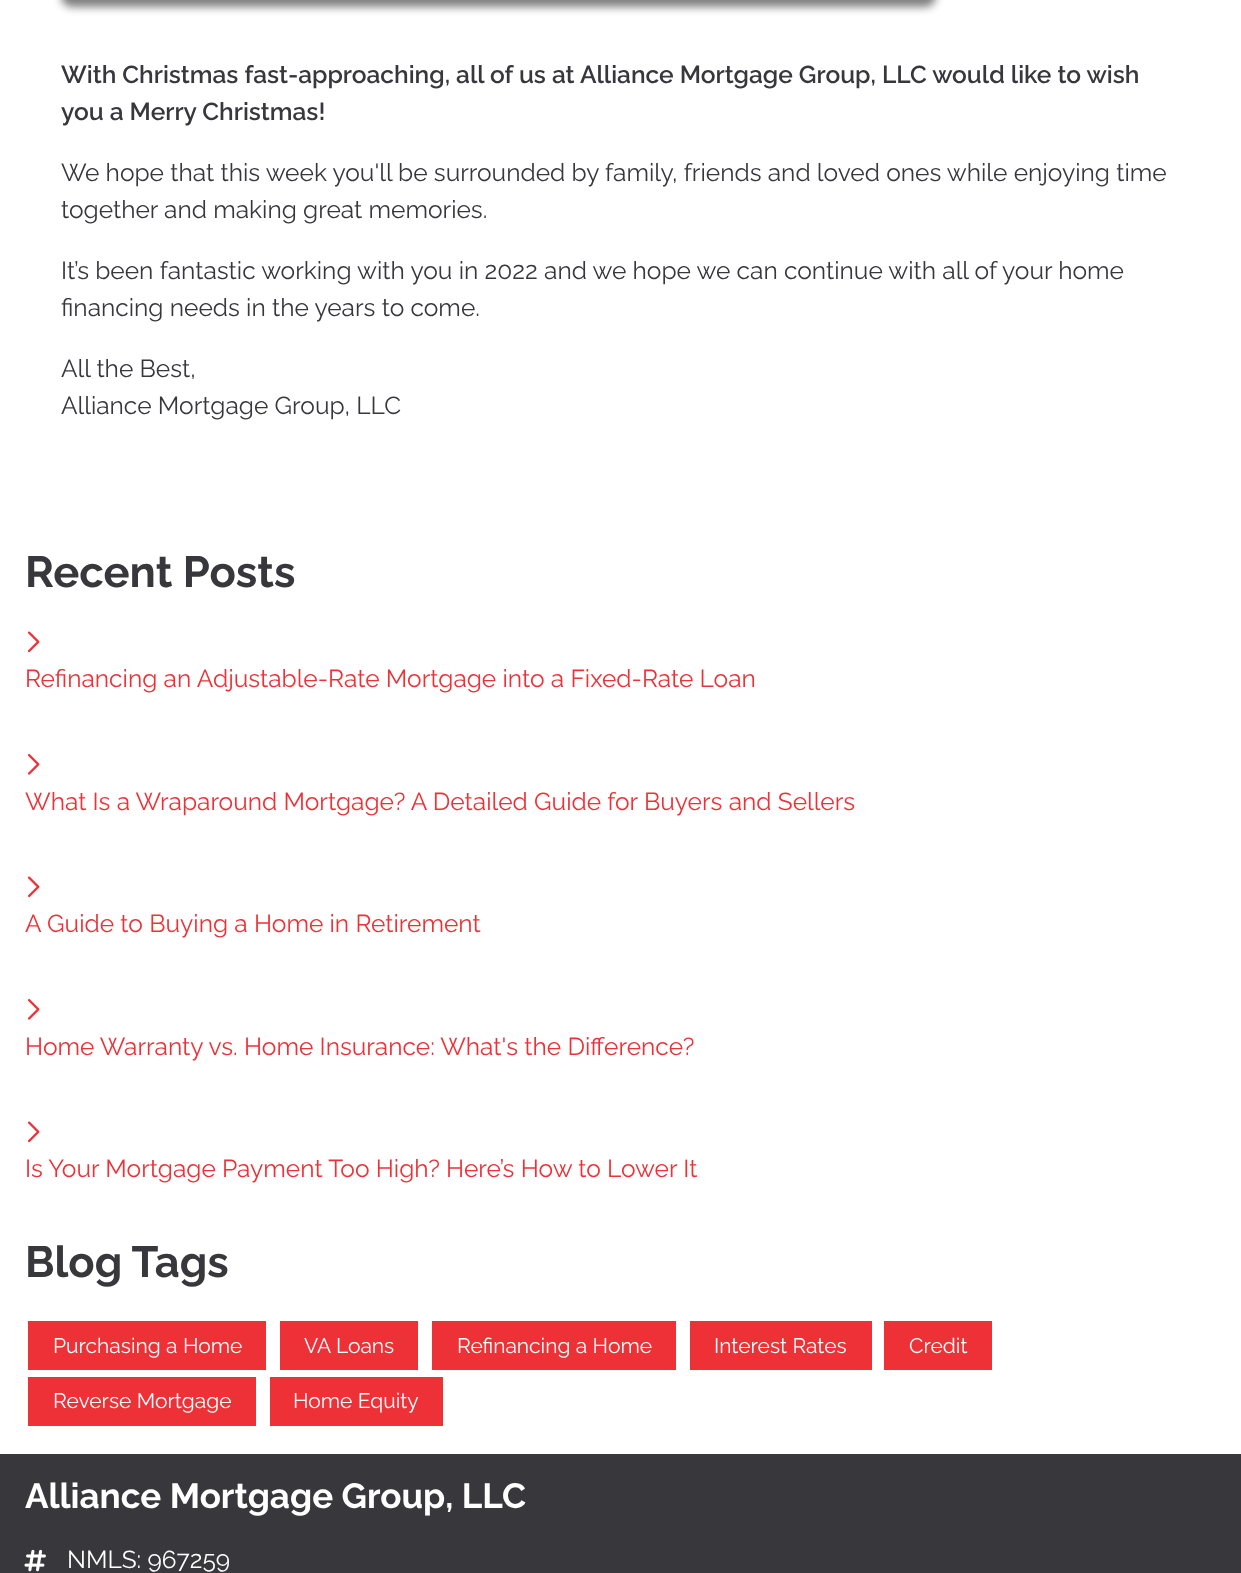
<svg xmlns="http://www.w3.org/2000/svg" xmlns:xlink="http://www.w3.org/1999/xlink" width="1241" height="1573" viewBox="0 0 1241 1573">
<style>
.cls-1{font:600 24.5px Raleway;fill:#38373c}
.cls-2{font:100 24.5px Raleway;fill:#38373c}
.cls-3{font:bold 43.5px Raleway;fill:#38373c}
.cls-4{font:100 24.5px Raleway;fill:#ed3137}
.cls-5{font:100 21px Raleway;fill:#ffffff}
.cls-6{font:bold 35px Raleway;fill:#ffffff}
.cls-7{font:100 24.5px Raleway;fill:#ffffff}
</style>
<rect width="100%" height="100%" fill="#ffffff"/>
<rect fill="#000000" fill-opacity="0.5" filter="blur(4.5px)" x="61" y="-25" width="875" height="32" rx="11"/>
<image xlink:href="image0.png" x="28" y="631" width="12" height="22"/>
<image xlink:href="image1.png" x="28" y="754" width="12" height="21"/>
<image xlink:href="image0.png" x="28" y="876" width="12" height="22"/>
<image xlink:href="image1.png" x="28" y="999" width="12" height="21"/>
<image xlink:href="image0.png" x="28" y="1121" width="12" height="22"/>
<rect fill="#ed3137" x="28" y="1321" width="238" height="49"/>
<rect fill="#ed3137" x="280" y="1321" width="138" height="49"/>
<rect fill="#ed3137" x="432" y="1321" width="244" height="49"/>
<rect fill="#ed3137" x="690" y="1321" width="182" height="49"/>
<rect fill="#ed3137" x="884" y="1321" width="108" height="49"/>
<rect fill="#ed3137" x="28" y="1377" width="228" height="49"/>
<rect fill="#ed3137" x="270" y="1377" width="173" height="49"/>
<rect fill="#38373c" x="0" y="1454" width="1241" height="119"/>
<image xlink:href="image2.png" x="24" y="1549" width="22" height="23"/>
<text class="cls-1"><tspan x="61" y="83">With Christmas fast-approaching, all of us at Alliance Mortgage Group, LLC would like to wish</tspan><tspan x="61" y="120">you a Merry Christmas!</tspan></text>
<text class="cls-2"><tspan x="61" y="181">We hope that this week you'll be surrounded by family, friends and loved ones while enjoying time</tspan><tspan x="61" y="218">together and making great memories.</tspan></text>
<text class="cls-2"><tspan x="61" y="279">It’s been fantastic working with you in 2022 and we hope we can continue with all of your home</tspan><tspan x="61" y="316">financing needs in the years to come.</tspan></text>
<text class="cls-2"><tspan x="61" y="377">All the Best,</tspan><tspan x="61" y="414">Alliance Mortgage Group, LLC</tspan></text>
<text class="cls-3" x="25" y="587">Recent Posts</text>
<text class="cls-4" x="25" y="687">Refinancing an Adjustable-Rate Mortgage into a Fixed-Rate Loan</text>
<text class="cls-4" x="25" y="810">What Is a Wraparound Mortgage? A Detailed Guide for Buyers and Sellers</text>
<text class="cls-4" x="25" y="932">A Guide to Buying a Home in Retirement</text>
<text class="cls-4" x="25" y="1055">Home Warranty vs. Home Insurance: What's the Difference?</text>
<text class="cls-4" x="25" y="1177">Is Your Mortgage Payment Too High? Here’s How to Lower It</text>
<text class="cls-3" x="25" y="1277">Blog Tags</text>
<text class="cls-5" x="53" y="1353">Purchasing a Home</text>
<text class="cls-5" x="304" y="1353">VA Loans</text>
<text class="cls-5" x="457" y="1353">Refinancing a Home</text>
<text class="cls-5" x="714" y="1353">Interest Rates</text>
<text class="cls-5" x="909" y="1353">Credit</text>
<text class="cls-5" x="53" y="1408">Reverse Mortgage</text>
<text class="cls-5" x="293" y="1408">Home Equity</text>
<text class="cls-6" x="25" y="1508">Alliance Mortgage Group, LLC</text>
<text class="cls-7" x="67" y="1568">NMLS: 967259</text>
</svg>
